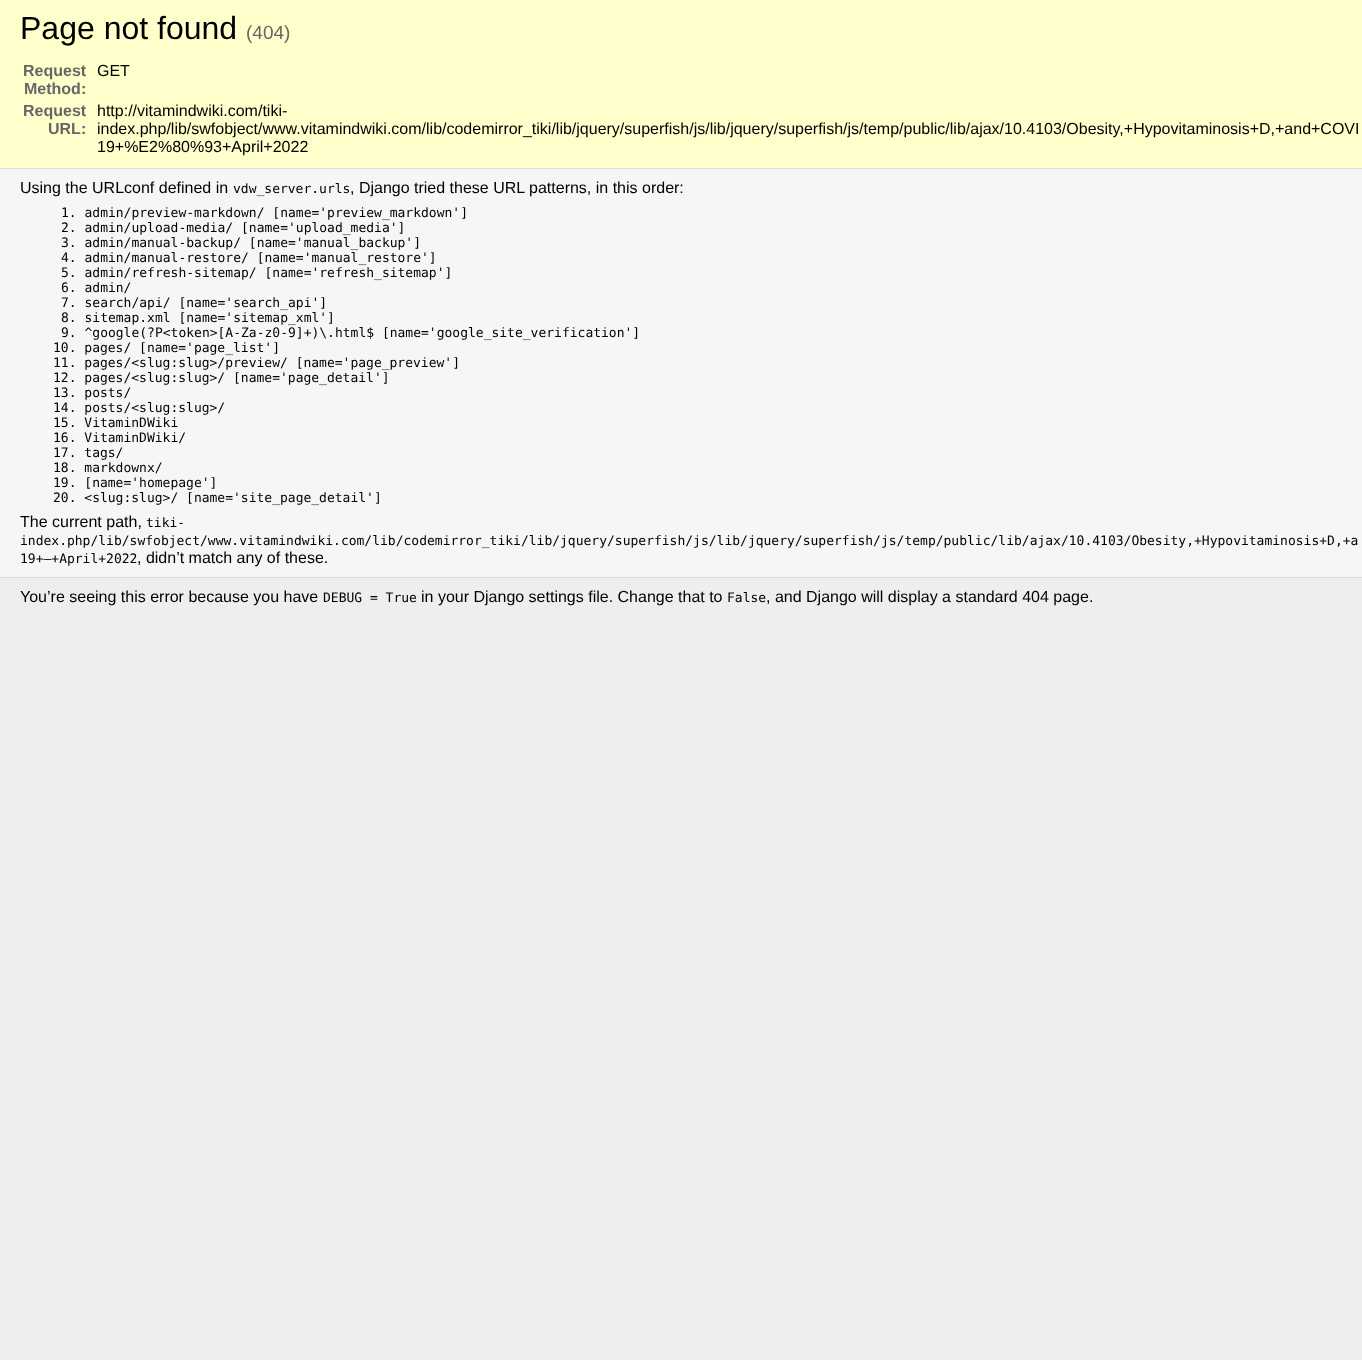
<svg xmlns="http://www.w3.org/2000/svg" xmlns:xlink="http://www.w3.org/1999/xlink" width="1362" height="1360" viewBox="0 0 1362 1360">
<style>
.cls-1{font:32px Liberation Sans;fill:#000000}
.cls-2{font:19px Liberation Sans;fill:#666666}
.cls-3{font:bold 16px Liberation Sans;fill:#666666}
.cls-4{font:16px Liberation Sans;fill:#000000}
.cls-5{font:13px DejaVu Sans Mono;fill:#000000}
</style>
<rect width="100%" height="100%" fill="#eeeeee"/>
<rect fill="#ffffcc" x="0" y="0" width="1362" height="168"/>
<rect fill="#dddddd" x="0" y="168" width="1362" height="1"/>
<rect fill="#f6f6f6" x="0" y="169" width="1362" height="408"/>
<rect fill="#dddddd" x="0" y="577" width="1362" height="1"/>
<text class="cls-1" x="20" y="39">Page not found</text>
<text class="cls-2" x="246" y="39">(404)</text>
<text class="cls-3" x="23" y="76">Request</text>
<text class="cls-3" x="24" y="94">Method:</text>
<text class="cls-4" x="97" y="76">GET</text>
<text class="cls-3" x="23" y="116">Request</text>
<text class="cls-3" x="48" y="134">URL:</text>
<text class="cls-4"><tspan x="97" y="116">http://vitamindwiki.com/tiki-</tspan><tspan x="97" y="134">index.php/lib/swfobject/www.vitamindwiki.com/lib/codemirror_tiki/lib/jquery/superfish/js/lib/jquery/superfish/js/temp/public/lib/ajax/10.4103/Obesity,+Hypovitaminosis+D,+and+COVI</tspan><tspan x="97" y="152">19+%E2%80%93+April+2022</tspan></text>
<text class="cls-4" x="20" y="193">Using the URLconf defined in</text>
<text class="cls-5" x="233" y="193">vdw_server.urls</text>
<text class="cls-4" x="350" y="193">, Django tried these URL patterns, in this order:</text>
<text class="cls-5"><tspan x="61" y="217">1. admin/preview-markdown/ [name='preview_markdown']</tspan><tspan x="61" y="232">2. admin/upload-media/ [name='upload_media']</tspan><tspan x="61" y="247">3. admin/manual-backup/ [name='manual_backup']</tspan><tspan x="61" y="262">4. admin/manual-restore/ [name='manual_restore']</tspan><tspan x="61" y="277">5. admin/refresh-sitemap/ [name='refresh_sitemap']</tspan><tspan x="61" y="292">6. admin/</tspan><tspan x="61" y="307">7. search/api/ [name='search_api']</tspan><tspan x="61" y="322">8. sitemap.xml [name='sitemap_xml']</tspan><tspan x="61" y="337">9. ^google(?P&lt;token&gt;[A-Za-z0-9]+)\.html$ [name='google_site_verification']</tspan></text>
<text class="cls-5"><tspan x="53" y="352">10. pages/ [name='page_list']</tspan><tspan x="53" y="367">11. pages/&lt;slug:slug&gt;/preview/ [name='page_preview']</tspan><tspan x="53" y="382">12. pages/&lt;slug:slug&gt;/ [name='page_detail']</tspan><tspan x="53" y="397">13. posts/</tspan><tspan x="53" y="412">14. posts/&lt;slug:slug&gt;/</tspan><tspan x="53" y="427">15. VitaminDWiki</tspan><tspan x="53" y="442">16. VitaminDWiki/</tspan><tspan x="53" y="457">17. tags/</tspan><tspan x="53" y="472">18. markdownx/</tspan><tspan x="53" y="487">19. [name='homepage']</tspan><tspan x="53" y="502">20. &lt;slug:slug&gt;/ [name='site_page_detail']</tspan></text>
<text class="cls-4" x="20" y="527">The current path,</text>
<text class="cls-5" x="146" y="527">tiki-</text>
<text class="cls-5"><tspan x="20" y="545">index.php/lib/swfobject/www.vitamindwiki.com/lib/codemirror_tiki/lib/jquery/superfish/js/lib/jquery/superfish/js/temp/public/lib/ajax/10.4103/Obesity,+Hypovitaminosis+D,+a</tspan><tspan x="20" y="563">19+–+April+2022</tspan></text>
<text class="cls-4" x="137" y="563">, didn’t match any of these.</text>
<text class="cls-4" x="20" y="602">You’re seeing this error because you have</text>
<text class="cls-5" x="323" y="602">DEBUG = True</text>
<text class="cls-4" x="421" y="602">in your Django settings file. Change that to</text>
<text class="cls-5" x="727" y="602">False</text>
<text class="cls-4" x="766" y="602">, and Django will display a standard 404 page.</text>
</svg>
